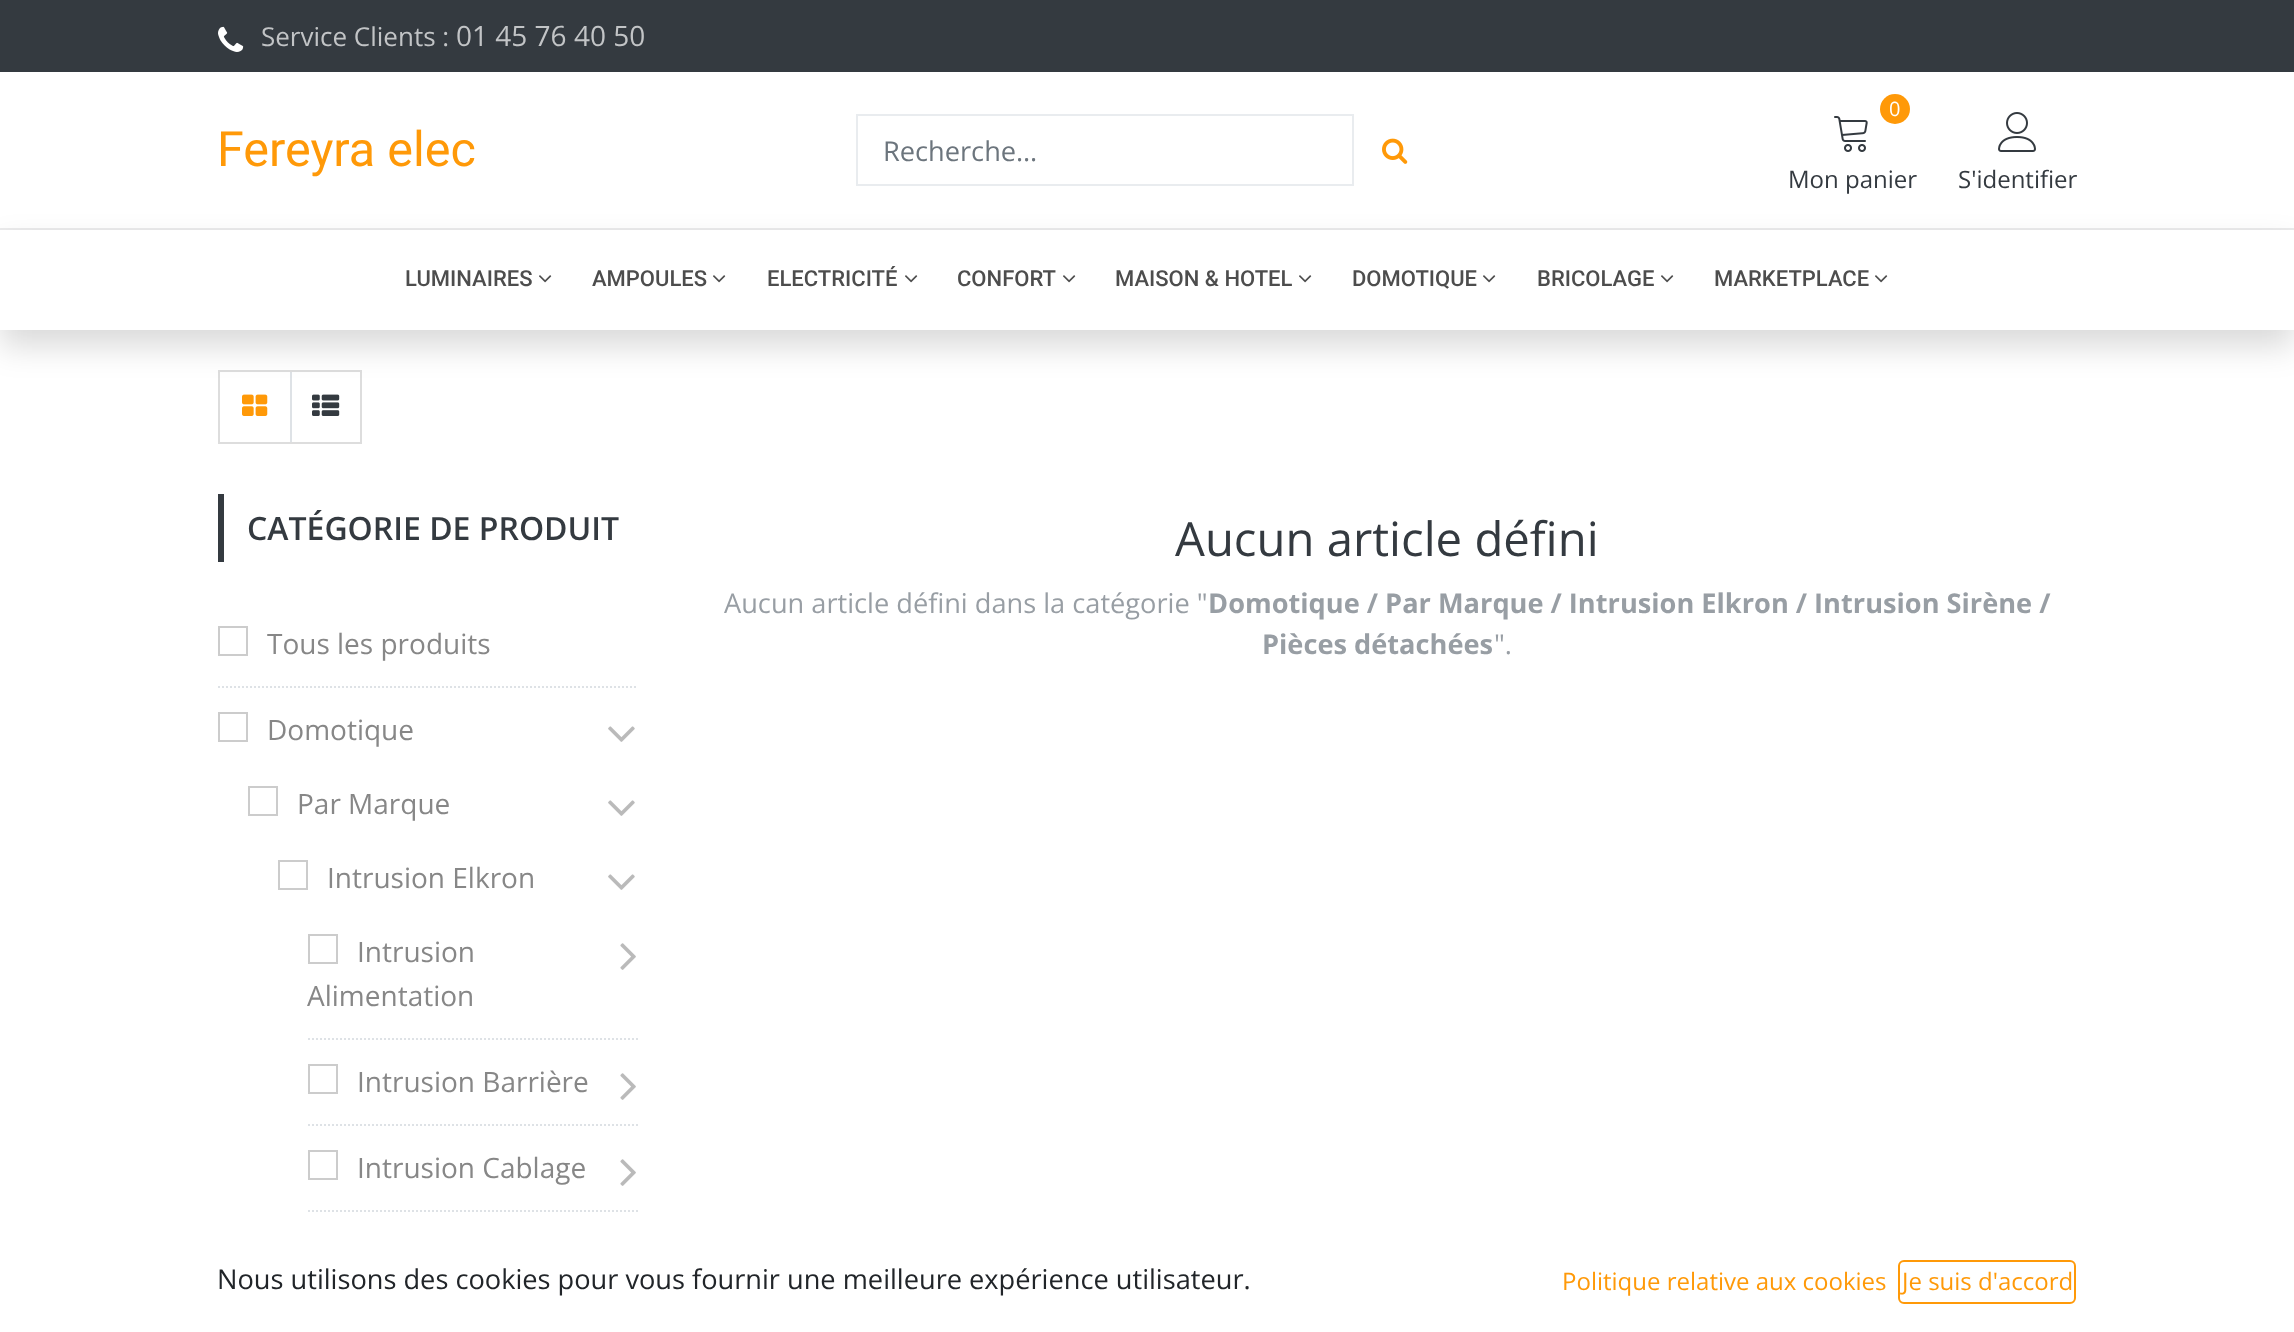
<svg xmlns="http://www.w3.org/2000/svg" xmlns:xlink="http://www.w3.org/1999/xlink" width="2294" height="1332" viewBox="0 0 2294 1332">
<style>
.cls-1{font:26px Open Sans;fill:#c2c4c6}
.cls-2{font:28px Open Sans;fill:#c2c4c6}
.cls-3{font:48.5px Roboto;fill:#ff9908}
.cls-4{font:27.2px Open Sans;fill:#6c757d}
.cls-5{font:20px Open Sans;fill:#ffffff}
.cls-6{font:24px Open Sans;fill:#343a40}
.cls-7{font:500 22px Roboto;fill:#4d4d4d}
.cls-8{font:600 32px Open Sans;fill:#343a40}
.cls-9{font:28px Open Sans;fill:#878787}
.cls-10{font:47.25px Open Sans;fill:#343a40}
.cls-11{font:27.2px Open Sans;fill:#989ea4}
.cls-12{font:bold 27.2px Open Sans;fill:#989ea4}
.cls-13{font:27.2px Open Sans;fill:#212529}
.cls-14{font:24px Open Sans;fill:#ff9908}
</style>
<defs>
<clipPath id="clip1"><path d="M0 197H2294V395H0ZM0 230H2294V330H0Z" clip-rule="evenodd"/></clipPath>
</defs>
<rect width="100%" height="100%" fill="#ffffff"/>
<rect fill="#343a40" x="0" y="0" width="2294" height="72"/>
<image xlink:href="image0.png" x="218" y="26" width="26" height="26"/>
<rect fill="#ebebec" x="0" y="228" width="2294" height="2"/>
<rect fill="none" stroke="#e9ecef" stroke-width="2" x="857" y="115" width="496" height="70"/>
<image xlink:href="image1.png" x="1382" y="138" width="26" height="26"/>
<circle fill="#ff9908" cx="1895" cy="109" r="15"/>
<image xlink:href="image2.png" x="1834" y="116" width="34" height="36"/>
<image xlink:href="image3.png" x="1998" y="112" width="38" height="40"/>
<rect fill="none" stroke="#dddddd" stroke-width="2" x="219" y="371" width="142" height="72"/>
<image xlink:href="image5.png" x="242" y="394" width="26" height="22"/>
<rect fill="#dee2e6" x="290" y="372" width="2" height="70"/>
<image xlink:href="image6.png" x="312" y="394" width="28" height="22"/>
<g clip-path="url(#clip1)">
<rect fill="#000000" fill-opacity="0.15" filter="blur(16px)" x="0" y="246" width="2294" height="100"/>
</g>
<image xlink:href="image4.png" x="539" y="275" width="13" height="8"/>
<image xlink:href="image4.png" x="713" y="275" width="13" height="8"/>
<image xlink:href="image4.png" x="905" y="275" width="13" height="8"/>
<image xlink:href="image4.png" x="1063" y="275" width="13" height="8"/>
<image xlink:href="image4.png" x="1299" y="275" width="13" height="8"/>
<image xlink:href="image4.png" x="1483" y="275" width="13" height="8"/>
<image xlink:href="image4.png" x="1661" y="275" width="13" height="8"/>
<image xlink:href="image4.png" x="1875" y="275" width="13" height="8"/>
<rect fill="#343a40" x="218" y="494" width="6" height="68"/>
<path fill="none" stroke="#dee2e6" stroke-width="2" stroke-dasharray="2 2" d="M218 687H638"/>
<rect fill="none" stroke="#cccccc" stroke-width="2" x="219" y="627" width="28" height="28"/>
<rect fill="none" stroke="#cccccc" stroke-width="2" x="219" y="713" width="28" height="28"/>
<image xlink:href="image7.png" x="608" y="726" width="27" height="16"/>
<rect fill="none" stroke="#cccccc" stroke-width="2" x="249" y="787" width="28" height="28"/>
<image xlink:href="image7.png" x="608" y="800" width="27" height="16"/>
<rect fill="none" stroke="#cccccc" stroke-width="2" x="279" y="861" width="28" height="28"/>
<image xlink:href="image7.png" x="608" y="874" width="27" height="16"/>
<path fill="none" stroke="#dee2e6" stroke-width="2" stroke-dasharray="2 2" d="M308 1039H638"/>
<rect fill="none" stroke="#cccccc" stroke-width="2" x="309" y="935" width="28" height="28"/>
<image xlink:href="image8.png" x="620" y="943" width="16" height="27"/>
<path fill="none" stroke="#dee2e6" stroke-width="2" stroke-dasharray="2 2" d="M308 1125H638"/>
<rect fill="none" stroke="#cccccc" stroke-width="2" x="309" y="1065" width="28" height="28"/>
<image xlink:href="image8.png" x="620" y="1073" width="16" height="27"/>
<path fill="none" stroke="#dee2e6" stroke-width="2" stroke-dasharray="2 2" d="M308 1211H638"/>
<rect fill="none" stroke="#cccccc" stroke-width="2" x="309" y="1151" width="28" height="28"/>
<image xlink:href="image8.png" x="620" y="1159" width="16" height="27"/>
<rect fill="none" stroke="#ff9908" stroke-width="2" x="1899" y="1261" width="176" height="42" rx="5"/>
<text class="cls-1" x="261" y="46">Service Clients :</text>
<text class="cls-2" x="456" y="46">01 45 76 40 50</text>
<text class="cls-3" x="217" y="166">Fereyra elec</text>
<text class="cls-4" x="883" y="161">Recherche…</text>
<text class="cls-5" x="1889" y="116">0</text>
<text class="cls-6" x="1788" y="188">Mon panier</text>
<text class="cls-6" x="1958" y="188">S'identifier</text>
<text class="cls-7" x="405" y="286">LUMINAIRES</text>
<text class="cls-7" x="592" y="286">AMPOULES</text>
<text class="cls-7" x="767" y="286">ELECTRICITÉ</text>
<text class="cls-7" x="957" y="286">CONFORT</text>
<text class="cls-7" x="1115" y="286">MAISON &amp; HOTEL</text>
<text class="cls-7" x="1352" y="286">DOMOTIQUE</text>
<text class="cls-7" x="1537" y="286">BRICOLAGE</text>
<text class="cls-7" x="1714" y="286">MARKETPLACE</text>
<text class="cls-8" x="247" y="540">CATÉGORIE DE PRODUIT</text>
<text class="cls-9" x="267" y="654">Tous les produits</text>
<text class="cls-9" x="267" y="740">Domotique</text>
<text class="cls-9" x="297" y="814">Par Marque</text>
<text class="cls-9" x="327" y="888">Intrusion Elkron</text>
<text class="cls-9" x="357" y="962">Intrusion</text>
<text class="cls-9" x="307" y="1006">Alimentation</text>
<text class="cls-9" x="357" y="1092">Intrusion Barrière</text>
<text class="cls-9" x="357" y="1178">Intrusion Cablage</text>
<text class="cls-10" x="1175" y="556">Aucun article défini</text>
<text class="cls-11" x="724" y="613">Aucun article défini dans la catégorie "</text>
<text class="cls-12" x="1208" y="613">Domotique / Par Marque / Intrusion Elkron / Intrusion Sirène /</text>
<text class="cls-12" x="1262" y="654">Pièces détachées</text>
<text class="cls-11" x="1494" y="654">".</text>
<text class="cls-13" x="217" y="1289">Nous utilisons des cookies pour vous fournir une meilleure expérience utilisateur.</text>
<text class="cls-14" x="1562" y="1290">Politique relative aux cookies</text>
<text class="cls-14" x="1902" y="1290">Je suis d'accord</text>
</svg>
